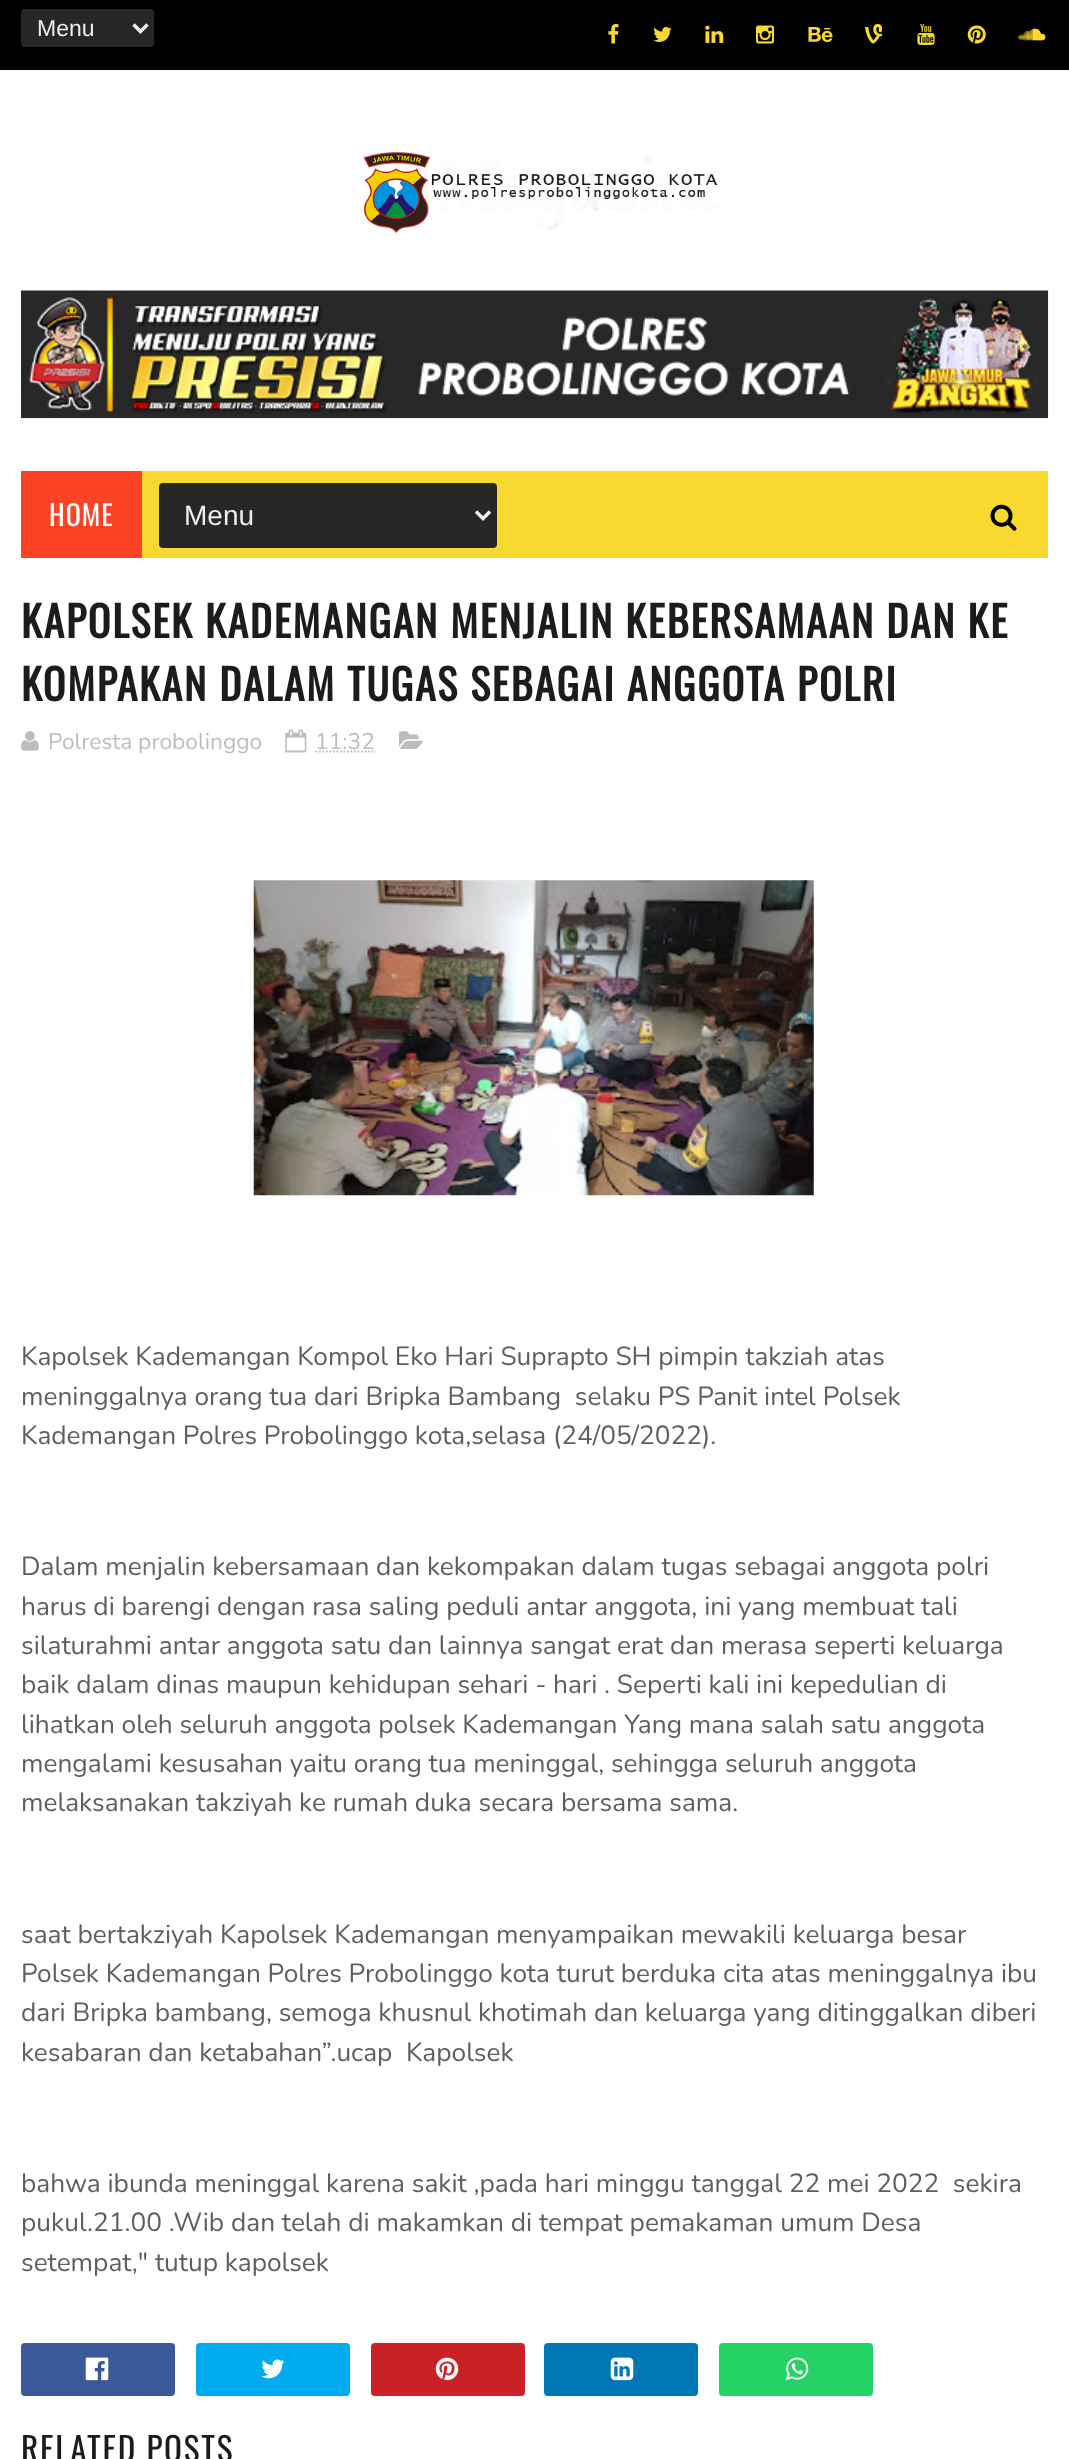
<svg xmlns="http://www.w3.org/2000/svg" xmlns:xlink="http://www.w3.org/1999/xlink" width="1069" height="2459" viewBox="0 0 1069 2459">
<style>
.cls-1{font:23px Liberation Sans;fill:#eeeeee}
.cls-2{font:28px Oswald;letter-spacing:1px;fill:#ffffff}
.cls-3{font:28px Liberation Sans;fill:#eeeeee}
.cls-4{font:bold 42px Oswald;letter-spacing:1.75px;fill:#1c1c1c}
.cls-5{font:22.75px Nunito;fill:#bdbdbd}
.cls-6{font:26.25px Nunito;fill:#5e5e5e}
.cls-7{font:33.25px Oswald;letter-spacing:1.75px;fill:#1c1c1c}
</style>
<rect width="100%" height="100%" fill="#ffffff"/>
<rect fill="#000000" x="0" y="0" width="1069" height="70"/>
<rect fill="#272727" x="21" y="9" width="133" height="38" rx="4"/>
<path fill="none" stroke="#eeeeee" stroke-width="3.5" d="M133.5 24.5L140.5 31.5L147.5 24.5"/>
<image xlink:href="image0.png" x="608" y="24" width="11" height="20"/>
<image xlink:href="image1.png" x="653" y="27" width="19" height="15"/>
<image xlink:href="image2.png" x="705" y="25" width="19" height="18"/>
<image xlink:href="image3.png" x="756" y="25" width="18" height="19"/>
<image xlink:href="image4.png" x="808" y="27" width="25" height="15"/>
<image xlink:href="image5.png" x="865" y="24" width="18" height="20"/>
<image xlink:href="image6.png" x="917" y="24" width="18" height="21"/>
<image xlink:href="image7.png" x="967" y="25" width="19" height="19"/>
<image xlink:href="image8.png" x="1018" y="28" width="28" height="13"/>
<image xlink:href="image9.png" x="363" y="152" width="355" height="81"/>
<image xlink:href="image10.png" x="21" y="290" width="1028" height="129"/>
<rect fill="#f8d92f" x="142" y="471" width="906" height="87"/>
<rect fill="#fd4326" x="21" y="471" width="121" height="87"/>
<rect fill="#272727" x="159" y="483" width="338" height="65" rx="4"/>
<path fill="none" stroke="#eeeeee" stroke-width="3.5" d="M476 511.5L483 518.5L490 511.5"/>
<image xlink:href="image11.png" x="990" y="504" width="27" height="27"/>
<image xlink:href="image12.png" x="21" y="731" width="18" height="20"/>
<path fill="none" stroke="#bdbdbd" stroke-width="1.8" stroke-dasharray="1.75 1.75" d="M285.5 751.5H306.5"/>
<image xlink:href="image13.png" x="285" y="729" width="22" height="24"/>
<path fill="none" stroke="#bdbdbd" stroke-width="1.8" stroke-dasharray="1.75 1.75" d="M315.5 751.5H375.5"/>
<image xlink:href="image14.png" x="399" y="731" width="24" height="18"/>
<image xlink:href="image15.png" x="253" y="880" width="561" height="316"/>
<rect fill="#3b5998" x="21" y="2343" width="154" height="53" rx="4"/>
<image xlink:href="image16.png" x="85" y="2357" width="24" height="24"/>
<rect fill="#00acee" x="196" y="2343" width="154" height="53" rx="4"/>
<image xlink:href="image17.png" x="261" y="2359" width="24" height="20"/>
<rect fill="#ca2127" x="371" y="2343" width="154" height="53" rx="4"/>
<image xlink:href="image18.png" x="435" y="2357" width="24" height="24"/>
<rect fill="#0077b5" x="544" y="2343" width="154" height="53" rx="4"/>
<image xlink:href="image19.png" x="610" y="2357" width="24" height="24"/>
<rect fill="#25d266" x="719" y="2343" width="154" height="53" rx="4"/>
<image xlink:href="image20.png" x="785" y="2357" width="24" height="24"/>
<text class="cls-1" x="37" y="36">Menu</text>
<text class="cls-2" x="49" y="526">HOME</text>
<text class="cls-3" x="184" y="525">Menu</text>
<text class="cls-4"><tspan x="21" y="638">KAPOLSEK KADEMANGAN MENJALIN KEBERSAMAAN DAN KE</tspan><tspan x="21" y="701">KOMPAKAN DALAM TUGAS SEBAGAI ANGGOTA POLRI</tspan></text>
<text class="cls-5" x="48" y="749">Polresta probolinggo</text>
<text class="cls-5" x="315" y="749">11:32</text>
<text class="cls-6" xml:space="preserve"><tspan x="21" y="1365">Kapolsek Kademangan Kompol Eko Hari Suprapto SH pimpin takziah atas</tspan><tspan x="21" y="1405">meninggalnya orang tua dari Bripka Bambang  selaku PS Panit intel Polsek</tspan><tspan x="21" y="1444">Kademangan Polres Probolinggo kota,selasa (24/05/2022).</tspan></text>
<text class="cls-6"><tspan x="21" y="1575">Dalam menjalin kebersamaan dan kekompakan dalam tugas sebagai anggota polri</tspan><tspan x="21" y="1615">harus di barengi dengan rasa saling peduli antar anggota, ini yang membuat tali</tspan><tspan x="21" y="1654">silaturahmi antar anggota satu dan lainnya sangat erat dan merasa seperti keluarga</tspan><tspan x="21" y="1693">baik dalam dinas maupun kehidupan sehari - hari . Seperti kali ini kepedulian di</tspan><tspan x="21" y="1733">lihatkan oleh seluruh anggota polsek Kademangan Yang mana salah satu anggota</tspan><tspan x="21" y="1772">mengalami kesusahan yaitu orang tua meninggal, sehingga seluruh anggota</tspan><tspan x="21" y="1811">melaksanakan takziyah ke rumah duka secara bersama sama.</tspan></text>
<text class="cls-6" xml:space="preserve"><tspan x="21" y="1943">saat bertakziyah Kapolsek Kademangan menyampaikan mewakili keluarga besar</tspan><tspan x="21" y="1982">Polsek Kademangan Polres Probolinggo kota turut berduka cita atas meninggalnya ibu</tspan><tspan x="21" y="2021">dari Bripka bambang, semoga khusnul khotimah dan keluarga yang ditinggalkan diberi</tspan><tspan x="21" y="2061">kesabaran dan ketabahan”.ucap  Kapolsek</tspan></text>
<text class="cls-6" xml:space="preserve"><tspan x="21" y="2192">bahwa ibunda meninggal karena sakit ,pada hari minggu tanggal 22 mei 2022  sekira</tspan><tspan x="21" y="2231">pukul.21.00 .Wib dan telah di makamkan di tempat pemakaman umum Desa</tspan><tspan x="21" y="2271">setempat," tutup kapolsek</tspan></text>
<text class="cls-7" x="21" y="2462">RELATED POSTS</text>
</svg>
